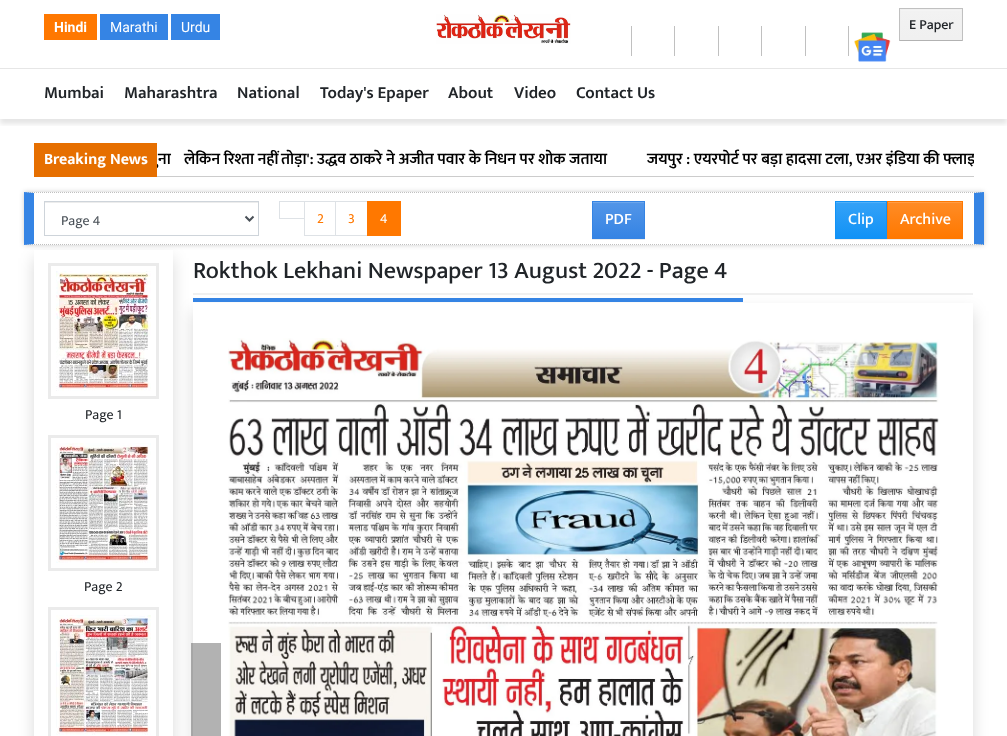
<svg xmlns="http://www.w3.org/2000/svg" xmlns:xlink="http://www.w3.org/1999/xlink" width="1007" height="736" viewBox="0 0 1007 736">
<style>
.cls-1{font:bold 14px Roboto;fill:#ffffff}
.cls-2{font:14px Roboto;fill:#ffffff}
.cls-3{font:500 14px Mukta;fill:#212529}
.cls-4{font:600 17px Mukta;fill:#212529}
.cls-5{font:600 16px Mukta;fill:#000000}
.cls-6{font:bold 16px Mukta;fill:#ffffff}
.cls-7{font:14px Mukta;fill:#495057}
.cls-8{font:14px Mukta;fill:#ff7800}
.cls-9{font:14px Mukta;fill:#ffffff}
.cls-10{font:500 16px Mukta;fill:#ffffff}
.cls-11{font:500 24px Mukta;fill:#212529}
.cls-12{font:14px Mukta;fill:#212529}
</style>
<defs>
<linearGradient id="g1" gradientUnits="userSpaceOnUse" x1="931" y1="10" x2="931" y2="39"><stop offset="0" stop-color="#f2f2f2"/><stop offset="1" stop-color="#f0f0f0"/></linearGradient>
<clipPath id="clip1"><rect x="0" y="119" width="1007" height="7"/></clipPath>
<clipPath id="clip2"><path d="M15 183H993V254H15ZM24 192H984V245H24Z" clip-rule="evenodd"/></clipPath>
<linearGradient id="g2" gradientUnits="userSpaceOnUse" x1="619" y1="202" x2="619" y2="238"><stop offset="0" stop-color="#5396e8"/><stop offset="1" stop-color="#3584e4"/></linearGradient>
<linearGradient id="g3" gradientUnits="userSpaceOnUse" x1="861" y1="202" x2="861" y2="238"><stop offset="0" stop-color="#35a2f7"/><stop offset="1" stop-color="#1192f6"/></linearGradient>
<linearGradient id="g4" gradientUnits="userSpaceOnUse" x1="925" y1="202" x2="925" y2="238"><stop offset="0" stop-color="#ff8c26"/><stop offset="1" stop-color="#ff7800"/></linearGradient>
<clipPath id="clip3"><path d="M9 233H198V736H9ZM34 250H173V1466H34Z" clip-rule="evenodd"/></clipPath>
<clipPath id="clip4"><path d="M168 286H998V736H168ZM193 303H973V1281H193Z" clip-rule="evenodd"/></clipPath>
<clipPath id="clip5"><rect x="34" y="143" width="940" height="30"/></clipPath>
</defs>
<rect width="100%" height="100%" fill="#ffffff"/>
<rect fill="#ff7800" x="44" y="14" width="53" height="26"/>
<rect fill="#3584e4" x="100" y="14" width="68" height="26"/>
<rect fill="#3584e4" x="171" y="14" width="49" height="26"/>
<image xlink:href="image0.png" x="436" y="14" width="135" height="30"/>
<rect fill="#c0c0c0" x="631" y="26" width="1" height="30"/>
<rect fill="#c0c0c0" x="674" y="26" width="1" height="30"/>
<rect fill="#c0c0c0" x="718" y="26" width="1" height="30"/>
<rect fill="#c0c0c0" x="761" y="26" width="1" height="30"/>
<rect fill="#c0c0c0" x="805" y="26" width="1" height="30"/>
<rect fill="#c0c0c0" x="848" y="26" width="1" height="30"/>
<image xlink:href="image1.png" x="854" y="32" width="37" height="30"/>
<rect fill="none" stroke="#c0c0c0" x="899.5" y="8.5" width="63" height="32"/>
<rect fill="#000000" fill-opacity="0.07" filter="blur(0.5px)" x="900" y="10" width="62" height="31"/>
<rect fill="url(#g1)" x="901" y="11" width="60" height="28"/>
<rect fill="#f4f4f4" x="901" y="10" width="60" height="1"/>
<rect fill="none" stroke="#f0f0f0" x="900.5" y="9.5" width="61" height="30"/>
<g clip-path="url(#clip1)">
<rect fill="#000000" fill-opacity="0.1" filter="blur(2.5px)" x="0" y="73" width="1007" height="51"/>
</g>
<rect fill="#e6e6e6" x="0" y="68" width="1007" height="1"/>
<rect fill="#cccccc" x="157" y="176" width="817" height="1"/>
<g clip-path="url(#clip2)">
<rect fill="#000000" fill-opacity="0.2" filter="blur(2.5px)" x="24" y="192" width="960" height="53"/>
</g>
<path fill="none" stroke="#c0c0c0" stroke-dasharray="1 1" d="M24 192.5H984"/>
<path fill="#3584e4" d="M984 192V245L974 244V193Z"/>
<path fill="none" stroke="#c0c0c0" stroke-dasharray="1 1" d="M24 244.5H984"/>
<path fill="#3584e4" d="M24 245V192L34 193V244Z"/>
<rect fill="#ececec" x="45" y="202" width="213" height="1"/>
<rect fill="none" stroke="#ced4da" x="44.5" y="201.5" width="214" height="34"/>
<path fill="none" stroke="#495057" stroke-width="2" d="M245.5 216.5L249.5 220.5L253.5 216.5"/>
<rect fill="none" stroke="#dee2e6" x="279.5" y="201.5" width="25" height="17"/>
<rect fill="none" stroke="#dee2e6" x="304.5" y="201.5" width="31" height="34"/>
<rect fill="none" stroke="#dee2e6" x="335.5" y="201.5" width="32" height="34"/>
<rect fill="#ff7800" x="367" y="201" width="34" height="35"/>
<rect fill="#000000" fill-opacity="0.07" filter="blur(0.5px)" x="592" y="202" width="53" height="38"/>
<rect fill="url(#g2)" x="593" y="203" width="51" height="35"/>
<rect fill="#6da6eb" x="593" y="202" width="51" height="1"/>
<rect fill="none" stroke="#3584e4" x="592.5" y="201.5" width="52" height="37"/>
<rect fill="#000000" fill-opacity="0.07" filter="blur(0.5px)" x="835" y="202" width="52" height="38"/>
<rect fill="url(#g3)" x="836" y="203" width="50" height="35"/>
<rect fill="#53b0f8" x="836" y="202" width="50" height="1"/>
<rect fill="none" stroke="#1192f6" x="835.5" y="201.5" width="51" height="37"/>
<rect fill="#000000" fill-opacity="0.07" filter="blur(0.5px)" x="887" y="202" width="76" height="38"/>
<rect fill="url(#g4)" x="888" y="203" width="74" height="35"/>
<rect fill="#ff9d46" x="888" y="202" width="74" height="1"/>
<rect fill="none" stroke="#ff7800" x="887.5" y="201.5" width="75" height="37"/>
<g clip-path="url(#clip3)">
<rect fill="#000000" fill-opacity="0.15" filter="blur(8px)" x="34" y="258" width="139" height="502"/>
</g>
<rect fill="#f0f0f0" x="193" y="293" width="780" height="2"/>
<g clip-path="url(#clip4)">
<rect fill="#000000" fill-opacity="0.15" filter="blur(8px)" x="193" y="311" width="780" height="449"/>
</g>
<rect fill="#3584e4" x="193" y="298" width="550" height="4"/>
<rect fill="#000000" fill-opacity="0.3" x="191" y="643" width="30" height="93"/>
<image xlink:href="image2.png" x="228" y="338" width="712" height="398"/>
<rect fill="none" stroke="#ebebeb" stroke-width="3" x="49.5" y="264.5" width="108" height="133"/>
<image xlink:href="image3.png" x="56" y="271" width="95" height="120"/>
<rect fill="none" stroke="#ebebeb" stroke-width="3" x="49.5" y="436.5" width="108" height="133"/>
<image xlink:href="image4.png" x="56" y="443" width="95" height="120"/>
<rect fill="none" stroke="#ebebeb" stroke-width="3" x="49.5" y="608.5" width="108" height="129"/>
<image xlink:href="image5.png" x="56" y="615" width="95" height="120"/>
<text class="cls-1" x="54" y="32">Hindi</text>
<text class="cls-2" x="110" y="32">Marathi</text>
<text class="cls-2" x="181" y="32">Urdu</text>
<text class="cls-3" x="909" y="29">E Paper</text>
<text class="cls-4" x="44" y="98">Mumbai</text>
<text class="cls-4" x="124" y="98">Maharashtra</text>
<text class="cls-4" x="237" y="98">National</text>
<text class="cls-4" x="320" y="98">Today's Epaper</text>
<text class="cls-4" x="448" y="98">About</text>
<text class="cls-4" x="514" y="98">Video</text>
<text class="cls-4" x="576" y="98">Contact Us</text>
<text class="cls-5" x="158" y="164">ुना</text>
<text class="cls-5" x="184" y="164">लेकिन रिश्ता नहीं</text>
<text class="cls-5" x="281" y="164">तोड़ा': उद्धव ठाकरे ने अजीत पवार के निधन पर शोक जताया</text>
<rect fill="#e66f00" x="34" y="143" width="123" height="34"/>
<text class="cls-6" x="44" y="164">Breaking News</text>
<g clip-path="url(#clip5)">
<text class="cls-5" x="647" y="164">जयपुर : एयरपोर्ट पर बड़ा हादसा टला, एअर इंडिया की फ्लाइ</text>
</g>
<text class="cls-7" x="61" y="225">Page 4</text>
<text class="cls-8" x="317" y="223">2</text>
<text class="cls-8" x="348" y="223">3</text>
<text class="cls-9" x="380" y="223">4</text>
<text class="cls-10" x="605" y="224">PDF</text>
<text class="cls-10" x="848" y="224">Clip</text>
<text class="cls-10" x="900" y="224">Archive</text>
<text class="cls-11" x="193" y="278">Rokthok Lekhani Newspaper 13 August 2022 - Page 4</text>
<text class="cls-12" x="85" y="419">Page 1</text>
<text class="cls-12" x="84" y="591">Page 2</text>
</svg>
